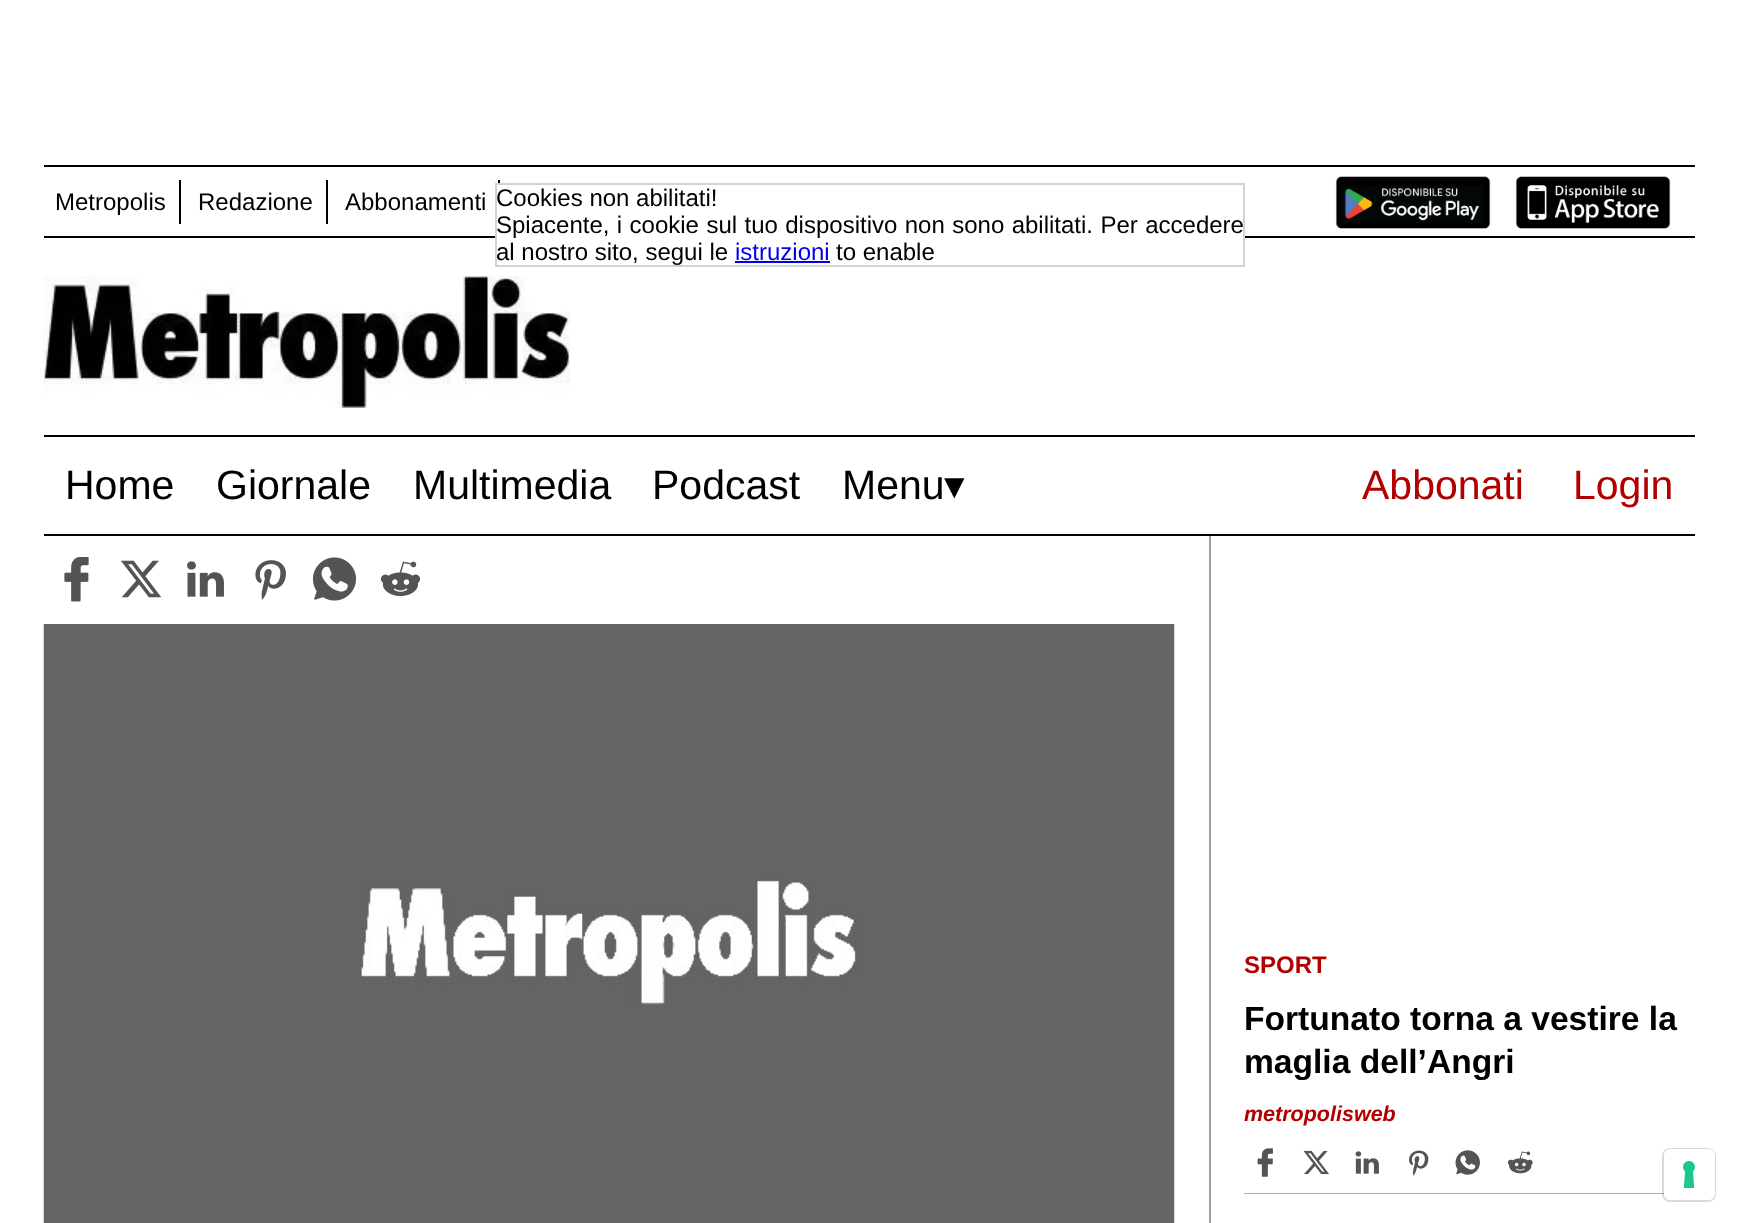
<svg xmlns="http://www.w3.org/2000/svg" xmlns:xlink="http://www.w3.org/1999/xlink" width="1738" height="1223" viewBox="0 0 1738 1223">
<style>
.cls-1{font:24px Liberation Sans;fill:#000000}
.cls-2{font:24px Liberation Sans;fill:#0000ee}
.cls-3{font:41px Liberation Sans;fill:#000000}
.cls-4{font:41px DejaVu Sans;fill:#000000}
.cls-5{font:41px Liberation Sans;fill:#b20000}
.cls-6{font:bold 24px Liberation Sans;fill:#b20000}
.cls-7{font:bold 33.6px Liberation Sans;fill:#000000}
.cls-8{font:italic bold 21.5px Liberation Sans;fill:#b20000}
</style>
<rect width="100%" height="100%" fill="#ffffff"/>
<rect fill="#000000" x="44" y="236" width="1651" height="2"/>
<rect fill="#ffffff" x="497" y="236" width="746" height="2"/>
<rect fill="none" stroke="#d3d3d3" stroke-width="2" x="496" y="184" width="748" height="82"/>
<rect fill="#0000ee" x="735" y="261" width="95" height="2"/>
<rect fill="#000000" x="44" y="165" width="1651" height="2"/>
<rect fill="#000000" x="179" y="180" width="2" height="44"/>
<rect fill="#000000" x="326" y="180" width="2" height="44"/>
<rect fill="#000000" x="498" y="180" width="2" height="3"/>
<image xlink:href="image0.png" x="1335" y="176" width="156" height="53"/>
<image xlink:href="image1.png" x="1515" y="176" width="156" height="53"/>
<image xlink:href="image2.png" x="43" y="276" width="527" height="132"/>
<rect fill="#000000" x="44" y="435" width="1651" height="2"/>
<rect fill="#000000" x="44" y="534" width="1651" height="2"/>
<image xlink:href="image3.png" x="64" y="557" width="25" height="45"/>
<image xlink:href="image4.png" x="121" y="560" width="41" height="38"/>
<image xlink:href="image5.png" x="187" y="561" width="37" height="36"/>
<image xlink:href="image6.png" x="255" y="560" width="31" height="40"/>
<image xlink:href="image7.png" x="312" y="557" width="45" height="44"/>
<image xlink:href="image8.png" x="380" y="561" width="41" height="36"/>
<image xlink:href="image9.png" x="43" y="624" width="1132" height="599"/>
<rect fill="#9e9e9e" x="1209" y="536" width="2" height="687"/>
<rect fill="#adadad" x="1244" y="1193" width="420" height="1"/>
<image xlink:href="image10.png" x="1257" y="1148" width="16" height="29"/>
<image xlink:href="image11.png" x="1303" y="1150" width="26" height="25"/>
<image xlink:href="image12.png" x="1355" y="1151" width="24" height="23"/>
<image xlink:href="image13.png" x="1409" y="1150" width="20" height="26"/>
<image xlink:href="image14.png" x="1455" y="1150" width="25" height="25"/>
<image xlink:href="image15.png" x="1507" y="1151" width="26" height="23"/>
<rect fill="none" stroke="#000000" stroke-opacity="0.15" stroke-width="2" x="1663" y="1149" width="52" height="52" rx="7"/>
<rect fill="#ffffff" x="1664" y="1149" width="51" height="51" rx="6"/>
<image xlink:href="image16.png" x="1683" y="1161" width="12" height="27"/>
<text class="cls-1"><tspan x="496" y="206">Cookies non abilitati!</tspan><tspan x="496" y="233" word-spacing="0.75">Spiacente, i cookie sul tuo dispositivo non sono abilitati. Per accedere</tspan><tspan x="496" y="260">al nostro sito, segui le</tspan></text>
<text class="cls-2" x="735" y="260">istruzioni</text>
<text class="cls-1" x="836" y="260">to enable</text>
<text class="cls-1" x="55" y="210">Metropolis</text>
<text class="cls-1" x="198" y="210">Redazione</text>
<text class="cls-1" x="345" y="210">Abbonamenti</text>
<text class="cls-3" x="65" y="499">Home</text>
<text class="cls-3" x="216" y="499">Giornale</text>
<text class="cls-3" x="413" y="499">Multimedia</text>
<text class="cls-3" x="652" y="499">Podcast</text>
<text class="cls-3" x="842" y="499">Menu</text>
<text class="cls-4" x="944" y="499">▾</text>
<text class="cls-5" x="1362" y="499">Abbonati</text>
<text class="cls-5" x="1573" y="499">Login</text>
<text class="cls-6" x="1244" y="973">SPORT</text>
<text class="cls-7"><tspan x="1244" y="1030">Fortunato torna a vestire la</tspan><tspan x="1244" y="1073">maglia dell’Angri</tspan></text>
<text class="cls-8" x="1244" y="1121">metropolisweb</text>
</svg>
